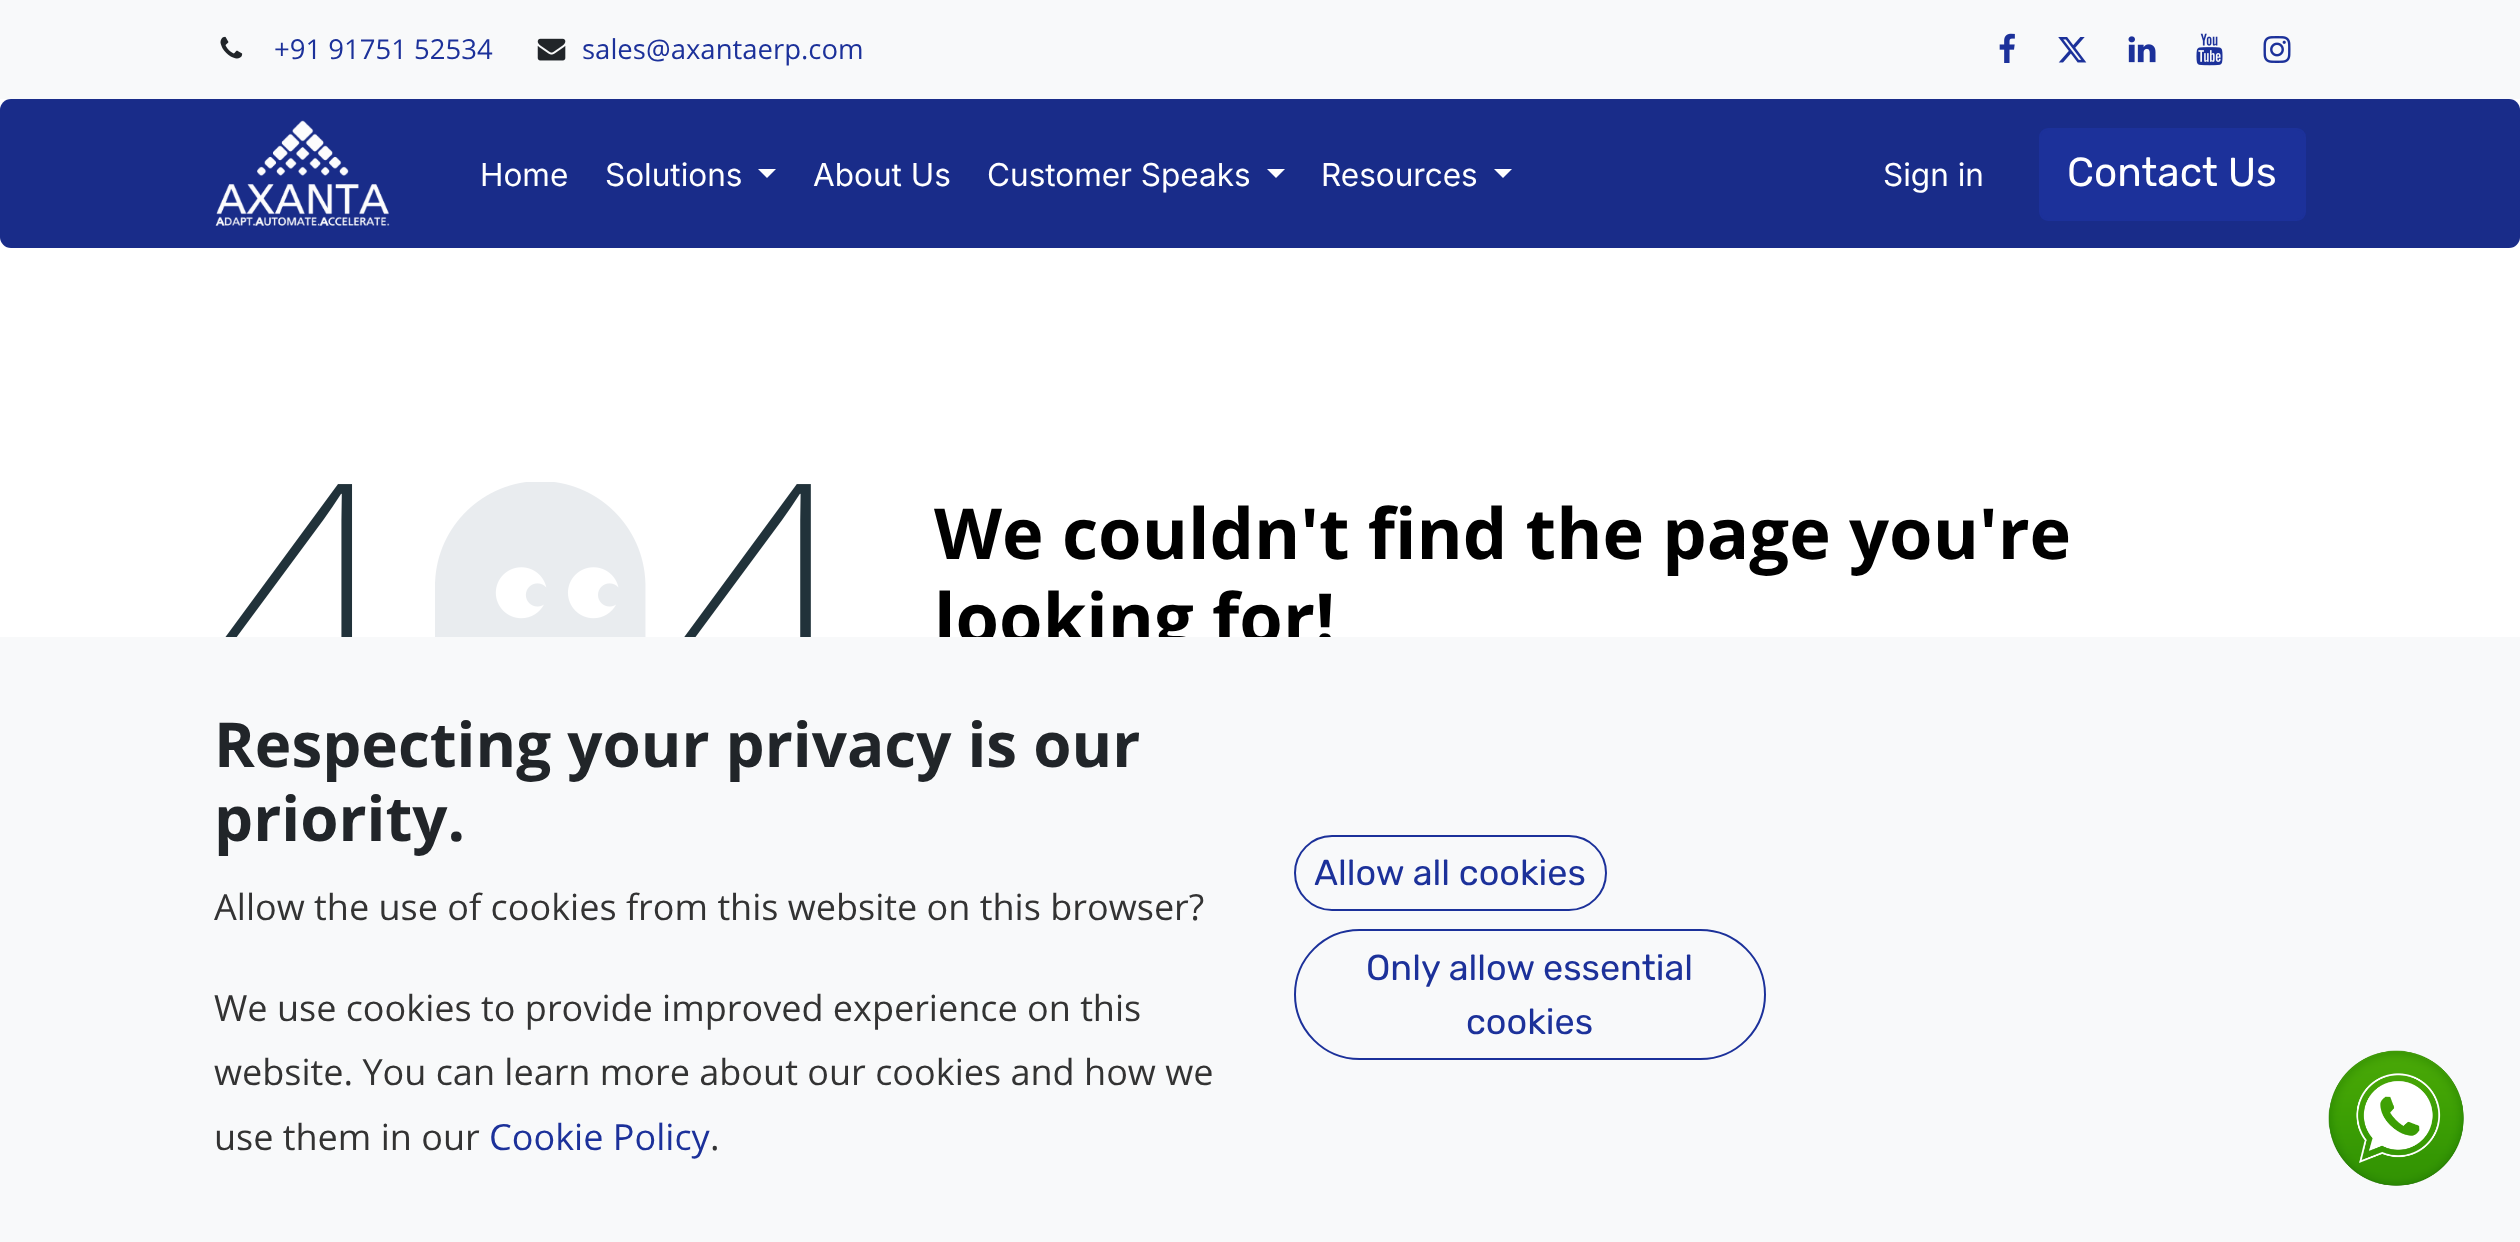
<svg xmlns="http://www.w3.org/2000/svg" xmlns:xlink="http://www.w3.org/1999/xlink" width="2520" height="1242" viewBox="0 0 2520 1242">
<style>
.cls-1{font:27.5px Open Sans;fill:#1c319a}
.cls-2{font:31.5px Inter;fill:#ffffff}
.cls-3{font:40.5px Rubik;fill:#ffffff}
.cls-4{font:bold 70.4px Open Sans;fill:#000000}
.cls-5{font:bold 61.9px Open Sans;fill:#212529}
.cls-6{font:36px Open Sans;fill:#333333}
.cls-7{font:36px Open Sans;fill:#1c319a}
.cls-8{font:36px Rubik;fill:#1c319a}
</style>
<rect width="100%" height="100%" fill="#ffffff"/>
<rect fill="#f8f9fa" x="0" y="0" width="2520" height="99"/>
<image xlink:href="image0.png" x="220" y="36" width="23" height="23"/>
<image xlink:href="image1.png" x="537" y="38" width="29" height="23"/>
<image xlink:href="image2.png" x="1999" y="33" width="16" height="30"/>
<image xlink:href="image3.png" x="2058" y="37" width="29" height="26"/>
<image xlink:href="image4.png" x="2128" y="36" width="28" height="27"/>
<image xlink:href="image5.png" x="2196" y="33" width="27" height="33"/>
<image xlink:href="image6.png" x="2263" y="36" width="28" height="27"/>
<rect fill="#192c89" x="0" y="99" width="2520" height="149" rx="11"/>
<image xlink:href="image7.png" x="215" y="120" width="175" height="106"/>
<path fill="#ffffff" d="M758 169H776L767 178Z"/>
<path fill="#ffffff" d="M1267 169H1285L1276 178Z"/>
<path fill="#ffffff" d="M1494 169H1512L1503 178Z"/>
<rect fill="#1c319a" stroke="#1c319a" stroke-width="2" x="2040" y="129" width="265" height="91" rx="8"/>
<image xlink:href="image8.png" x="225" y="482" width="586" height="155"/>
<text class="cls-1" x="274" y="59">+91 91751 52534</text>
<text class="cls-1" x="582" y="59">sales@axantaerp.com</text>
<text class="cls-2" x="480" y="186">Home</text>
<text class="cls-2" x="605" y="186">Solutions</text>
<text class="cls-2" x="813" y="186">About Us</text>
<text class="cls-2" x="987" y="186">Customer Speaks</text>
<text class="cls-2" x="1321" y="186">Resources</text>
<text class="cls-2" x="1883" y="186">Sign in</text>
<text class="cls-3" x="2067" y="186">Contact Us</text>
<text class="cls-4"><tspan x="934" y="559">We couldn't find the page you're</tspan><tspan x="934" y="644">looking for!</tspan></text>
<rect fill="#f8f9fa" x="0" y="637" width="2520" height="605"/>
<text class="cls-5"><tspan x="214" y="767">Respecting your privacy is our</tspan><tspan x="214" y="841">priority.</tspan></text>
<text class="cls-6" x="214" y="920">Allow the use of cookies from this website on this browser?</text>
<text class="cls-6"><tspan x="214" y="1021">We use cookies to provide improved experience on this</tspan><tspan x="214" y="1085">website. You can learn more about our cookies and how we</tspan><tspan x="214" y="1150">use them in our</tspan></text>
<text class="cls-7" x="489" y="1150">Cookie Policy</text>
<text class="cls-6" x="710" y="1150">.</text>
<rect fill="none" stroke="#1c319a" stroke-width="2" x="1295" y="836" width="311" height="74" rx="37"/>
<text class="cls-8" x="1314" y="885">Allow all cookies</text>
<rect fill="none" stroke="#1c319a" stroke-width="2" x="1295" y="930" width="470" height="129" rx="64.5"/>
<text class="cls-8" x="1366" y="980">Only allow essential</text>
<text class="cls-8" x="1466" y="1034">cookies</text>
<image xlink:href="image9.png" x="2328" y="1050" width="136" height="136"/>
</svg>
